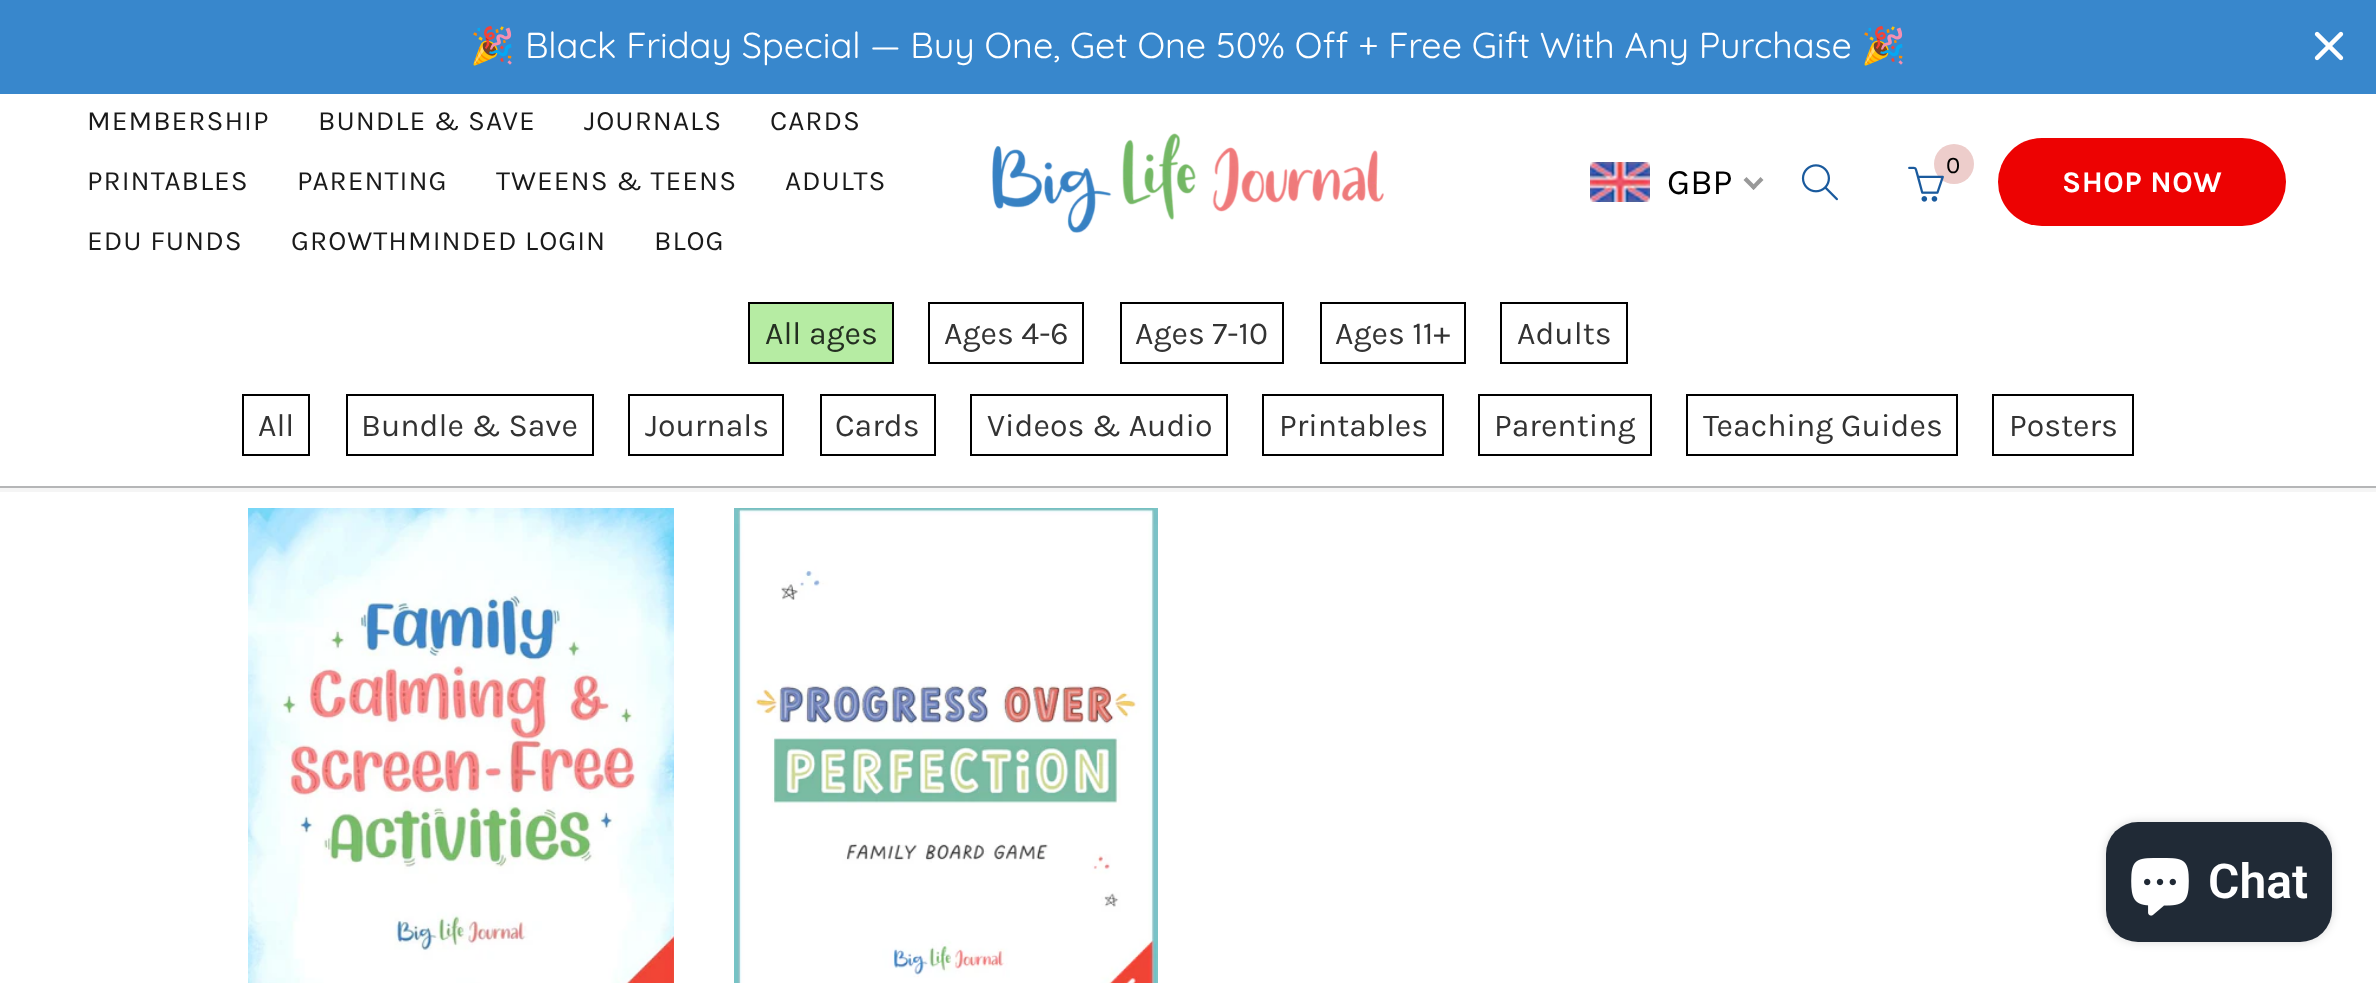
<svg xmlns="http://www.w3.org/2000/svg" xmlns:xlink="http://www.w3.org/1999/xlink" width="2376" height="983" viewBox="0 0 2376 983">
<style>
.cls-1{font:36px Noto Color Emoji;fill:#ffffff}
.cls-2{font:300 36px Quicksand;fill:#ffffff}
.cls-3{font:28px Karla;letter-spacing:1px;fill:#1a1a1a}
.cls-4{font:36px Karla;fill:#000000}
.cls-5{font:24px Karla;letter-spacing:0.5px;fill:#000000}
.cls-6{font:bold 30px Karla;letter-spacing:0.5px;fill:#ffffff}
.cls-7{font:32px Karla;fill:#242f21}
.cls-8{font:32px Karla;fill:#333333}
.cls-9{font:600 48px Roboto;fill:#ffffff}
</style>
<rect width="100%" height="100%" fill="#ffffff"/>
<rect fill="#3887cc" x="0" y="0" width="2376" height="94"/>
<image xlink:href="image0.png" x="2314" y="31" width="30" height="30"/>
<rect fill="#f5f5f5" x="0" y="488" width="2376" height="4"/>
<image xlink:href="image1.png" x="992" y="133" width="392" height="100"/>
<image xlink:href="image2.png" x="1590" y="162" width="60" height="40"/>
<path fill="#999999" d="M1760.5 177L1763.5 180L1753.5 190L1751 187Z"/>
<path fill="#999999" d="M1746.5 177L1756.5 187L1753.5 190L1743.5 180Z"/>
<image xlink:href="image3.png" x="1801" y="164" width="37" height="37"/>
<circle fill="#edcdcb" cx="1954" cy="164" r="20"/>
<image xlink:href="image4.png" x="1908" y="166" width="36" height="36"/>
<rect fill="#ed0202" x="1998" y="138" width="288" height="88" rx="44"/>
<rect fill="#b5b6b7" x="0" y="486" width="2376" height="2"/>
<rect fill="#b6eca3" stroke="#000000" stroke-width="2" x="749" y="303" width="144" height="60"/>
<rect fill="none" stroke="#000000" stroke-width="2" x="929" y="303" width="154" height="60"/>
<rect fill="none" stroke="#000000" stroke-width="2" x="1121" y="303" width="162" height="60"/>
<rect fill="none" stroke="#000000" stroke-width="2" x="1321" y="303" width="144" height="60"/>
<rect fill="none" stroke="#000000" stroke-width="2" x="1501" y="303" width="126" height="60"/>
<rect fill="none" stroke="#000000" stroke-width="2" x="243" y="395" width="66" height="60"/>
<rect fill="none" stroke="#000000" stroke-width="2" x="347" y="395" width="246" height="60"/>
<rect fill="none" stroke="#000000" stroke-width="2" x="629" y="395" width="154" height="60"/>
<rect fill="none" stroke="#000000" stroke-width="2" x="821" y="395" width="114" height="60"/>
<rect fill="none" stroke="#000000" stroke-width="2" x="971" y="395" width="256" height="60"/>
<rect fill="none" stroke="#000000" stroke-width="2" x="1263" y="395" width="180" height="60"/>
<rect fill="none" stroke="#000000" stroke-width="2" x="1479" y="395" width="172" height="60"/>
<rect fill="none" stroke="#000000" stroke-width="2" x="1687" y="395" width="270" height="60"/>
<rect fill="none" stroke="#000000" stroke-width="2" x="1993" y="395" width="140" height="60"/>
<image xlink:href="image5.png" x="248" y="508" width="426" height="475"/>
<image xlink:href="image6.png" x="734" y="508" width="424" height="475"/>
<rect fill="#000000" fill-opacity="0.15" filter="blur(5px)" x="2106" y="822" width="226" height="120" rx="32"/>
<rect fill="#202a36" x="2106" y="822" width="226" height="120" rx="32"/>
<image xlink:href="image7.png" x="2131" y="858" width="58" height="58"/>
<text class="cls-1" x="470" y="58">🎉</text>
<text class="cls-2" x="525" y="58">Black Friday Special — Buy One, Get One 50% Off + Free Gift With Any Purchase</text>
<text class="cls-1" x="1861" y="58">🎉</text>
<text class="cls-3" x="87" y="130">MEMBERSHIP</text>
<text class="cls-3" x="318" y="130">BUNDLE &amp; SAVE</text>
<text class="cls-3" x="584" y="130">JOURNALS</text>
<text class="cls-3" x="770" y="130">CARDS</text>
<text class="cls-3" x="87" y="190">PRINTABLES</text>
<text class="cls-3" x="297" y="190">PARENTING</text>
<text class="cls-3" x="496" y="190">TWEENS &amp; TEENS</text>
<text class="cls-3" x="785" y="190">ADULTS</text>
<text class="cls-3" x="87" y="250">EDU FUNDS</text>
<text class="cls-3" x="291" y="250">GROWTHMINDED LOGIN</text>
<text class="cls-3" x="654" y="250">BLOG</text>
<text class="cls-4" x="1667" y="194">GBP</text>
<text class="cls-5" x="1946" y="173">0</text>
<text class="cls-6" x="2062" y="192">SHOP NOW</text>
<text class="cls-7" x="765" y="344">All ages</text>
<text class="cls-8" x="944" y="344">Ages 4-6</text>
<text class="cls-8" x="1135" y="344">Ages 7-10</text>
<text class="cls-8" x="1335" y="344">Ages 11+</text>
<text class="cls-8" x="1517" y="344">Adults</text>
<text class="cls-8" x="258" y="436">All</text>
<text class="cls-8" x="361" y="436">Bundle &amp; Save</text>
<text class="cls-8" x="645" y="436">Journals</text>
<text class="cls-8" x="835" y="436">Cards</text>
<text class="cls-8" x="987" y="436">Videos &amp; Audio</text>
<text class="cls-8" x="1279" y="436">Printables</text>
<text class="cls-8" x="1494" y="436">Parenting</text>
<text class="cls-8" x="1703" y="436">Teaching Guides</text>
<text class="cls-8" x="2009" y="436">Posters</text>
<text class="cls-9" x="2208" y="898">Chat</text>
</svg>
